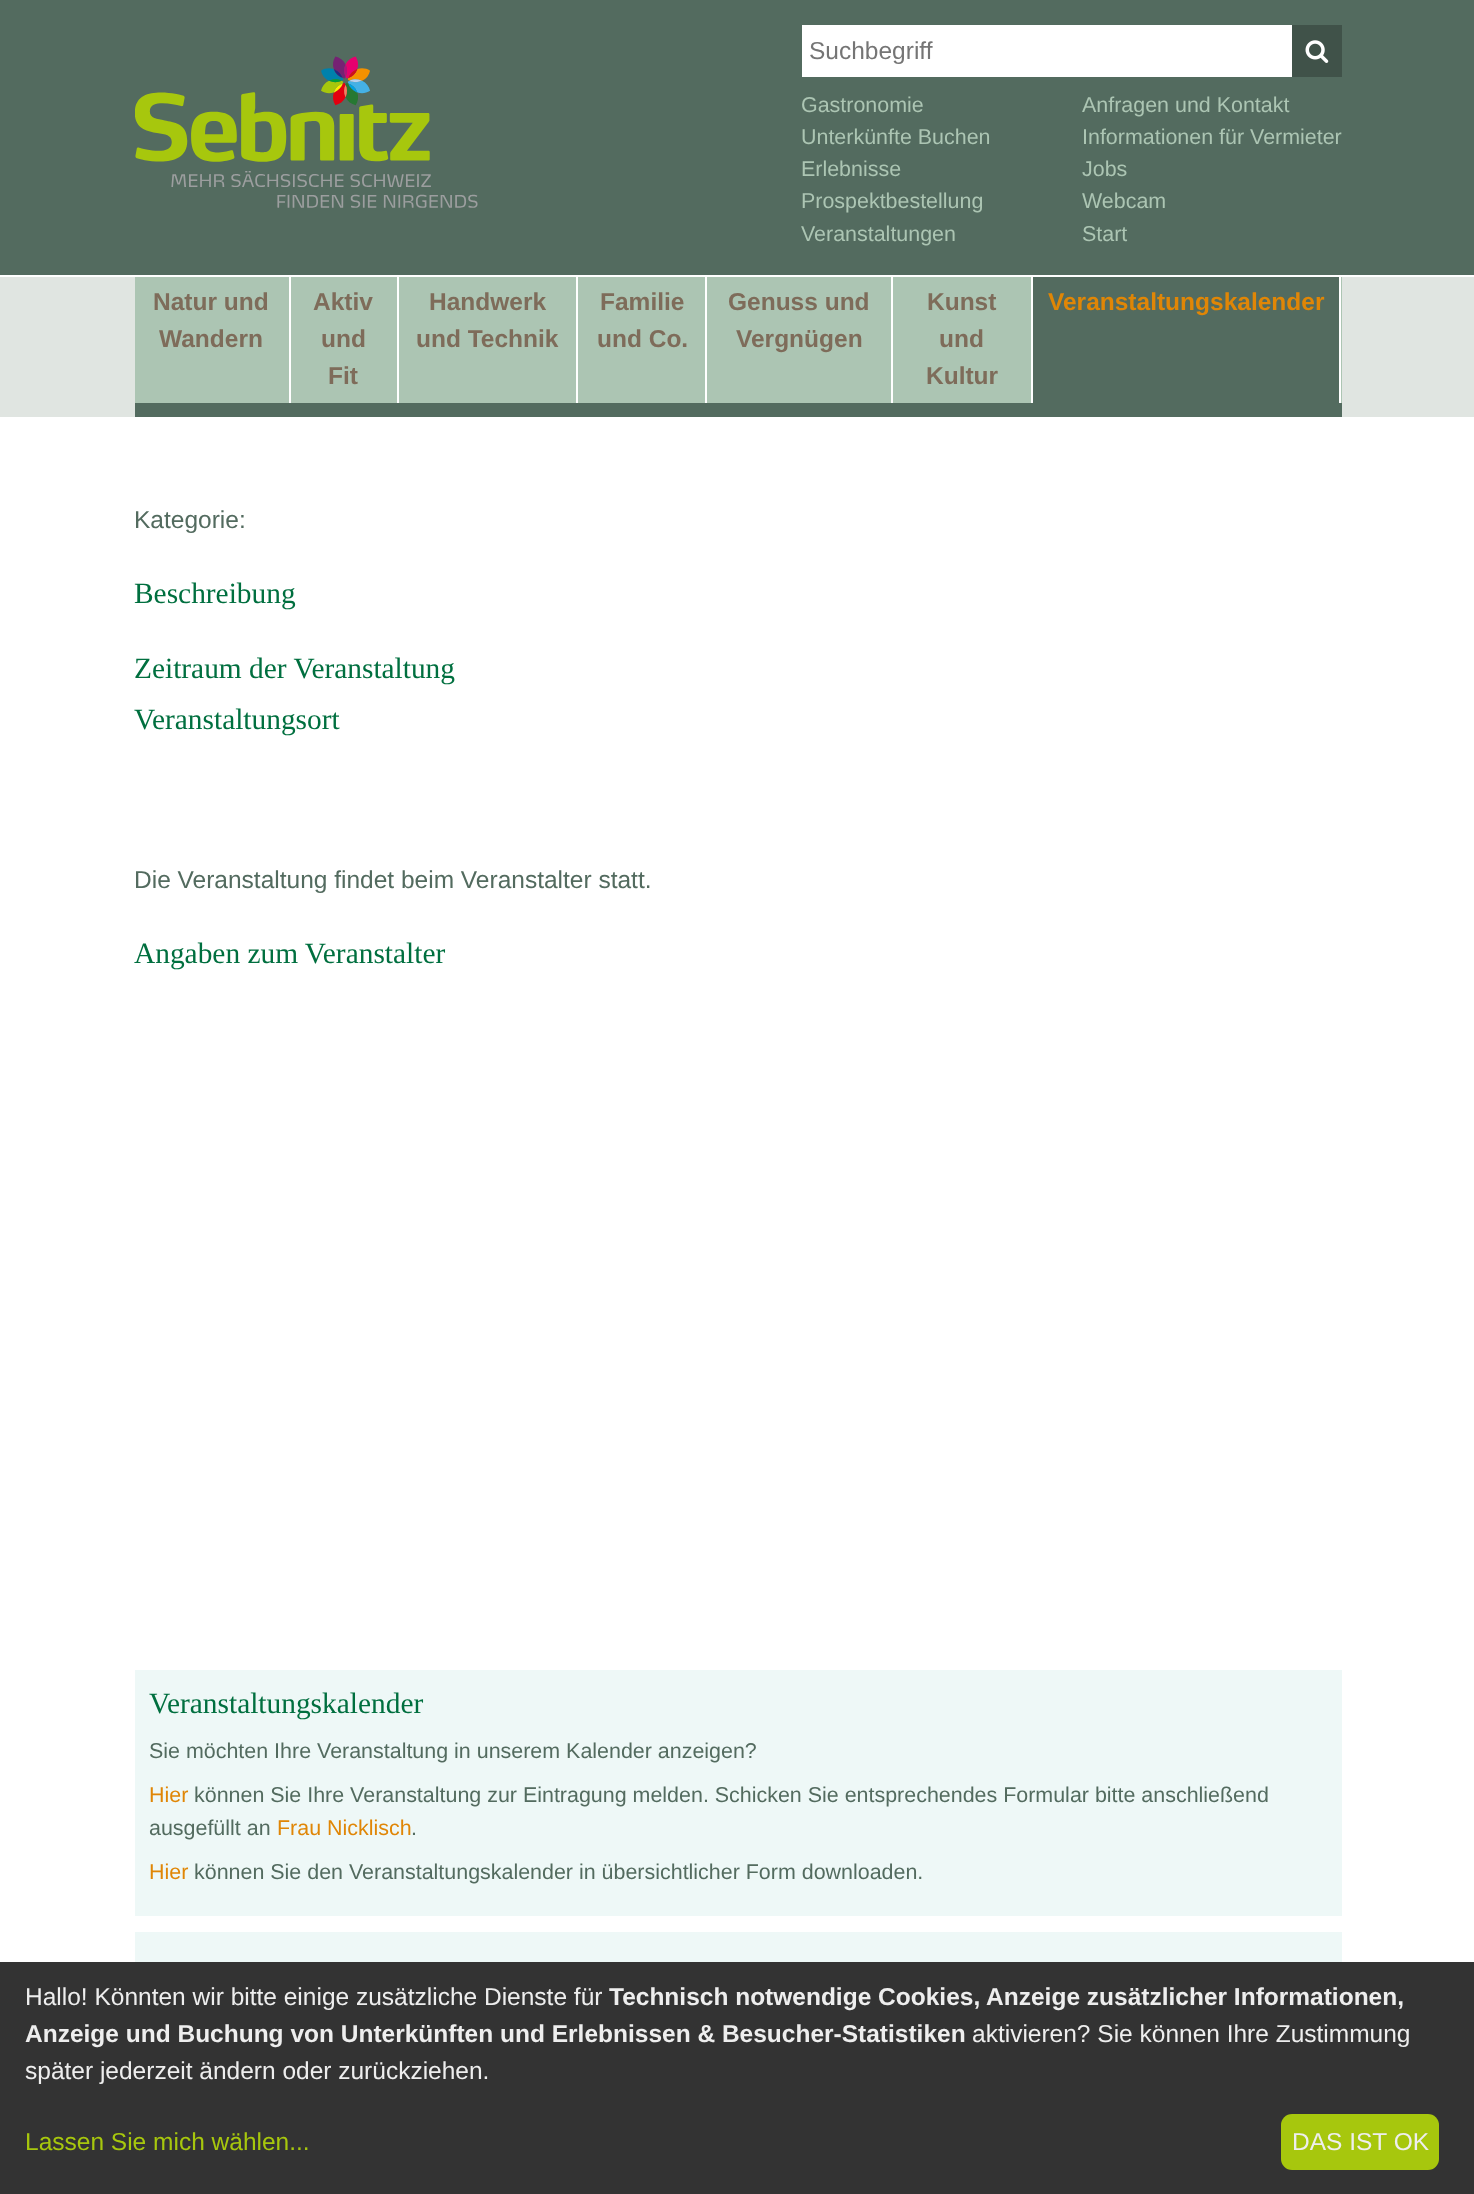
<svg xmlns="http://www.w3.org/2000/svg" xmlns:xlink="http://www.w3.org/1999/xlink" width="1474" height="2194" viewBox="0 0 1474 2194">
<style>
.cls-1{font:24.5px Liberation Sans;fill:#757575}
.cls-2{font:21.45px Liberation Sans;fill:#acc5b3}
.cls-3{font:bold 24.5px Liberation Sans;fill:#7e6c5a}
.cls-4{font:bold 24.5px Liberation Sans;fill:#e08606}
.cls-5{font:24.5px Liberation Sans;fill:#536b5f}
.cls-6{font:29.4px Liberation Serif;fill:#006f3f}
.cls-7{font:21.45px Liberation Sans;fill:#536b5f}
.cls-8{font:21.45px Liberation Sans;fill:#e08606}
.cls-9{font:24.5px Liberation Sans;fill:#eeeeee}
.cls-10{font:bold 24.5px Liberation Sans;fill:#eeeeee}
.cls-11{font:24.5px Liberation Sans;fill:#a7c70d}
</style>
<rect width="100%" height="100%" fill="#536b5f"/>
<rect fill="#ffffff" x="0" y="275" width="1474" height="2"/>
<image xlink:href="image0.png" x="135" y="56" width="343" height="152"/>
<rect fill="#ffffff" x="802" y="25" width="490" height="52"/>
<rect fill="#405249" x="1292" y="25" width="50" height="52"/>
<image xlink:href="image1.png" x="1305" y="40" width="24" height="23"/>
<rect fill="#e0e5e1" x="0" y="277" width="1474" height="140"/>
<rect fill="#acc5b3" x="135" y="277" width="1207" height="126"/>
<rect fill="#536b5f" x="135" y="403" width="1207" height="14"/>
<rect fill="#ffffff" x="289" y="277" width="2" height="126"/>
<rect fill="#ffffff" x="397" y="277" width="2" height="126"/>
<rect fill="#ffffff" x="576" y="277" width="2" height="126"/>
<rect fill="#ffffff" x="705" y="277" width="2" height="126"/>
<rect fill="#ffffff" x="891" y="277" width="2" height="126"/>
<rect fill="#ffffff" x="1031" y="277" width="2" height="126"/>
<rect fill="#ffffff" x="1339" y="277" width="2" height="126"/>
<rect fill="#536b5f" x="1033" y="277" width="306" height="126"/>
<rect fill="#ffffff" x="0" y="417" width="1474" height="1545"/>
<rect fill="#eef8f7" x="135" y="1670" width="1207" height="246"/>
<rect fill="#eef8f7" x="135" y="1932" width="1207" height="30"/>
<rect fill="#333333" x="0" y="1962" width="1474" height="232"/>
<rect fill="#a7c70d" x="1281" y="2114" width="158" height="56" rx="11"/>
<text class="cls-1" x="809" y="59">Suchbegriff</text>
<text class="cls-2" x="801" y="112">Gastronomie</text>
<text class="cls-2" x="1082" y="112">Anfragen und Kontakt</text>
<text class="cls-2" x="801" y="144">Unterkünfte Buchen</text>
<text class="cls-2" x="1082" y="144">Informationen für Vermieter</text>
<text class="cls-2" x="801" y="176">Erlebnisse</text>
<text class="cls-2" x="1082" y="176">Jobs</text>
<text class="cls-2" x="801" y="208">Prospektbestellung</text>
<text class="cls-2" x="1082" y="208">Webcam</text>
<text class="cls-2" x="801" y="241">Veranstaltungen</text>
<text class="cls-2" x="1082" y="241">Start</text>
<text class="cls-3" x="153" y="310">Natur und</text>
<text class="cls-3" x="159" y="347">Wandern</text>
<text class="cls-3" x="313" y="310">Aktiv</text>
<text class="cls-3" x="321" y="347">und</text>
<text class="cls-3" x="328" y="384">Fit</text>
<text class="cls-3" x="429" y="310">Handwerk</text>
<text class="cls-3" x="416" y="347">und Technik</text>
<text class="cls-3" x="600" y="310">Familie</text>
<text class="cls-3" x="597" y="347">und Co.</text>
<text class="cls-3" x="728" y="310">Genuss und</text>
<text class="cls-3" x="736" y="347">Vergnügen</text>
<text class="cls-3" x="927" y="310">Kunst</text>
<text class="cls-3" x="939" y="347">und</text>
<text class="cls-3" x="926" y="384">Kultur</text>
<text class="cls-4" x="1048" y="310">Veranstaltungskalender</text>
<text class="cls-5" x="134" y="528">Kategorie:</text>
<text class="cls-6" x="134" y="603">Beschreibung</text>
<text class="cls-6"><tspan x="134" y="678">Zeitraum der Veranstaltung</tspan><tspan x="134" y="729">Veranstaltungsort</tspan></text>
<text class="cls-5" x="134" y="888">Die Veranstaltung findet beim Veranstalter statt.</text>
<text class="cls-6" x="134" y="963">Angaben zum Veranstalter</text>
<text class="cls-6" x="149" y="1713">Veranstaltungskalender</text>
<text class="cls-7" x="149" y="1758">Sie möchten Ihre Veranstaltung in unserem Kalender anzeigen?</text>
<text class="cls-8" x="149" y="1802">Hier</text>
<text class="cls-7" x="194" y="1802">können Sie Ihre Veranstaltung zur Eintragung melden. Schicken Sie entsprechendes Formular bitte anschließend</text>
<text class="cls-7" x="149" y="1835">ausgefüllt an</text>
<text class="cls-8" x="277" y="1835">Frau Nicklisch</text>
<text class="cls-7" x="411" y="1835">.</text>
<text class="cls-8" x="149" y="1879">Hier</text>
<text class="cls-7" x="194" y="1879">können Sie den Veranstaltungskalender in übersichtlicher Form downloaden.</text>
<text class="cls-9" x="25" y="2005">Hallo! Könnten wir bitte einige zusätzliche Dienste für</text>
<text class="cls-10" x="609" y="2005">Technisch notwendige Cookies, Anzeige zusätzlicher Informationen,</text>
<text class="cls-10" x="25" y="2042">Anzeige und Buchung von Unterkünften und Erlebnissen &amp; Besucher-Statistiken</text>
<text class="cls-9" x="972" y="2042">aktivieren? Sie können Ihre Zustimmung</text>
<text class="cls-9" x="25" y="2079">später jederzeit ändern oder zurückziehen.</text>
<text class="cls-11" x="25" y="2150">Lassen Sie mich wählen...</text>
<text class="cls-9" x="1292" y="2150">DAS IST OK</text>
</svg>
